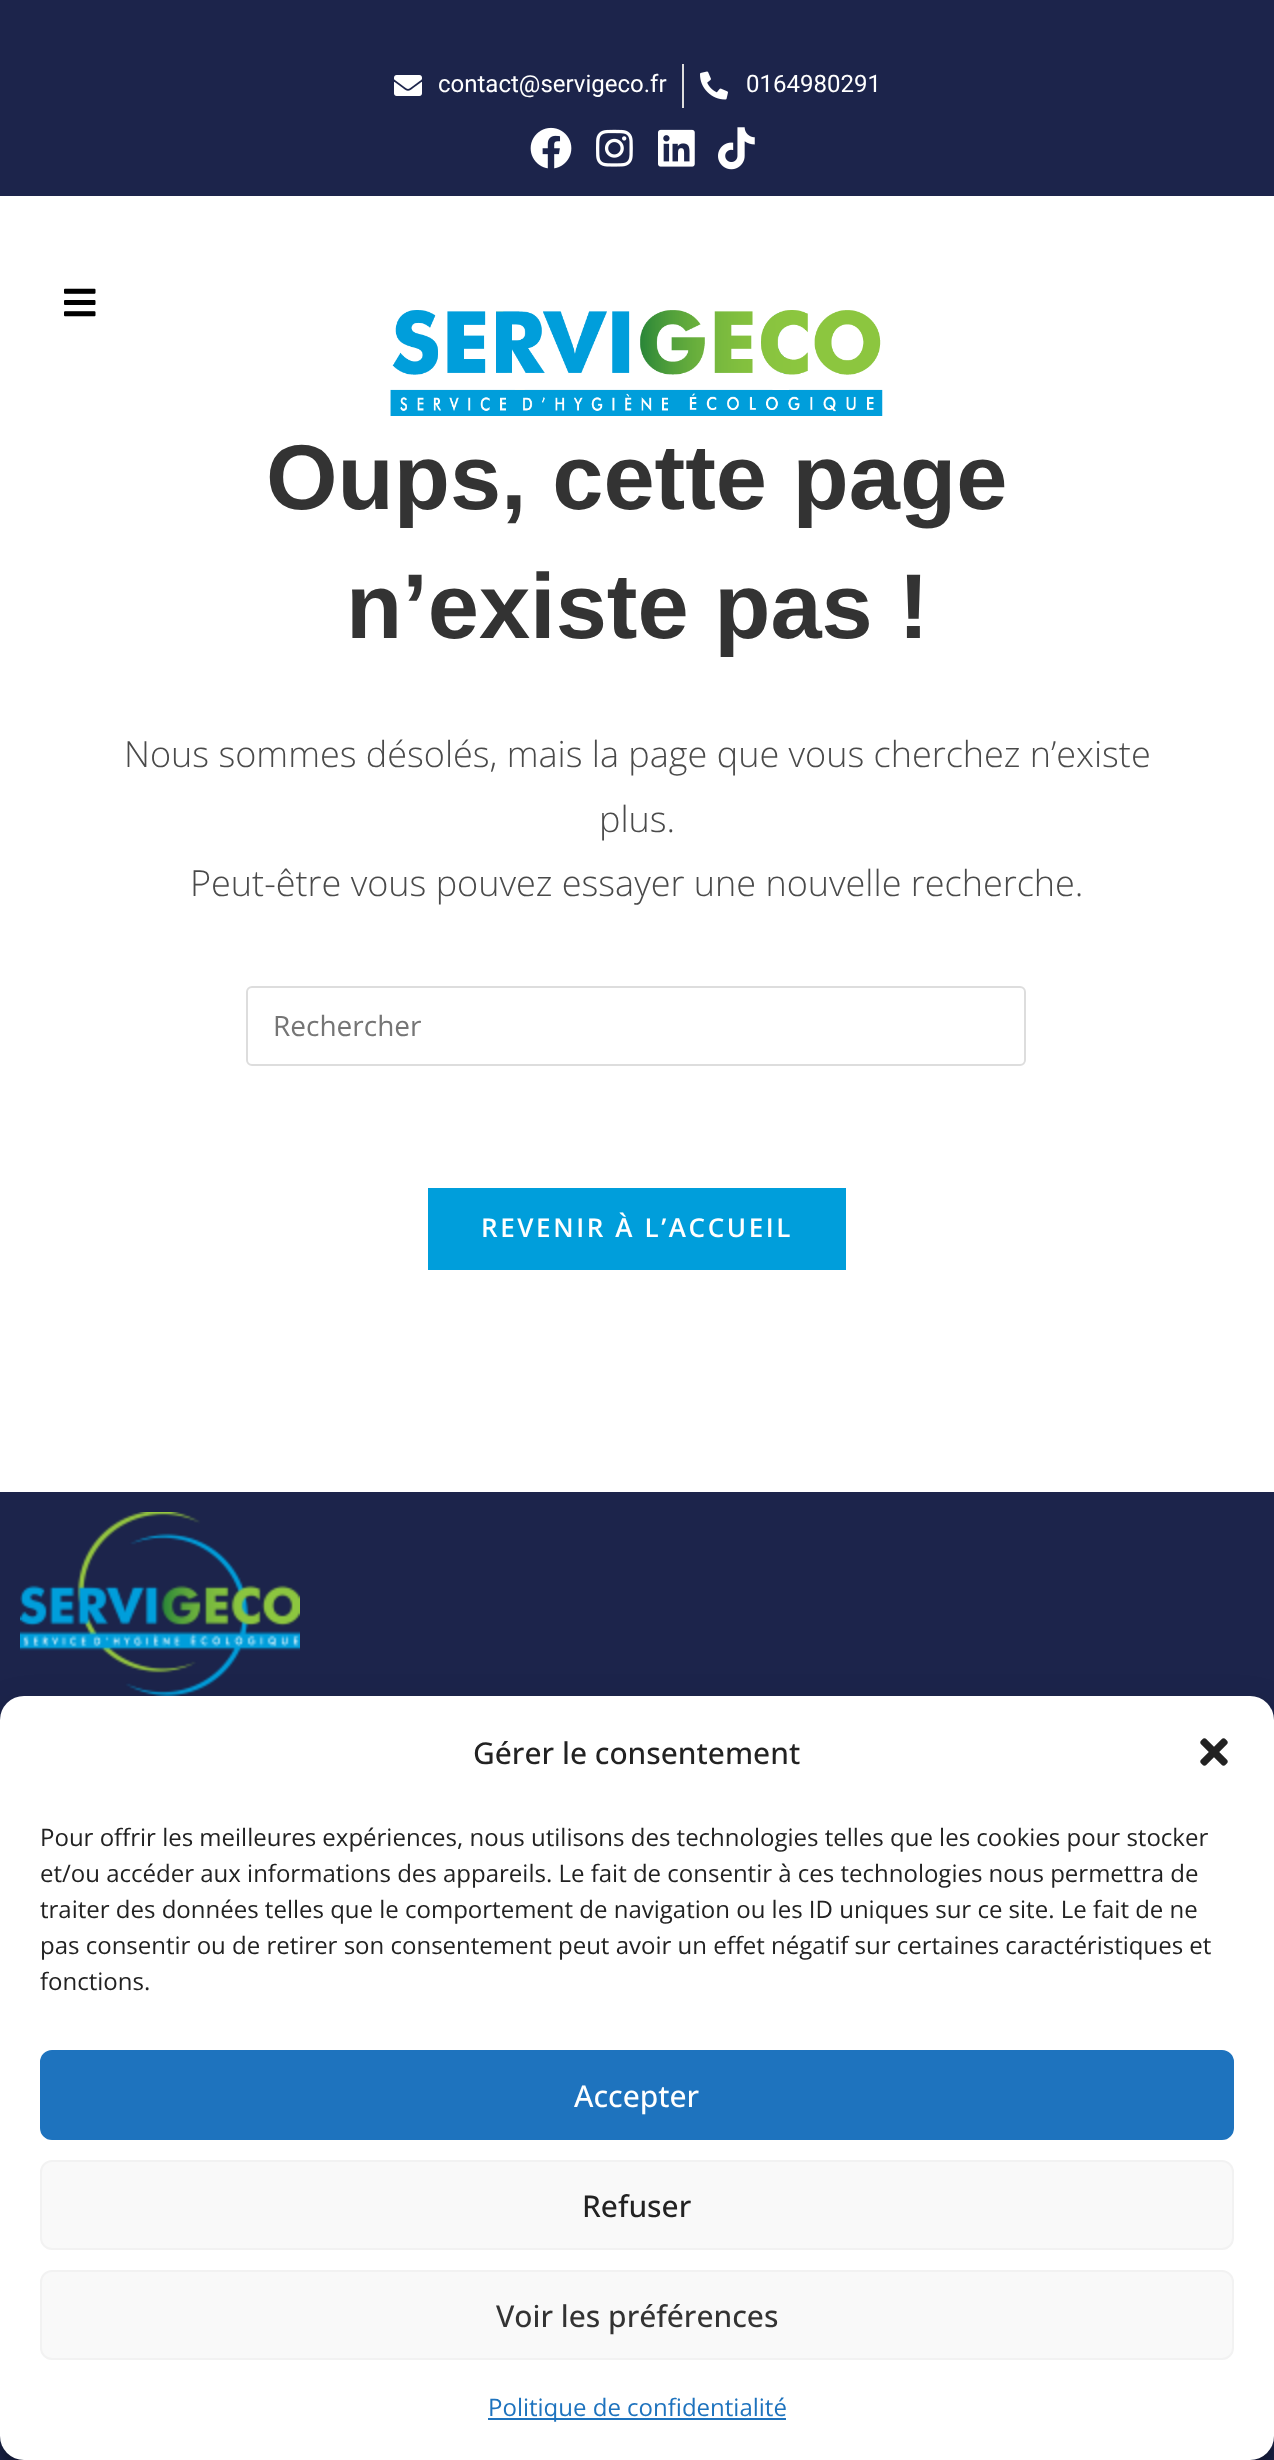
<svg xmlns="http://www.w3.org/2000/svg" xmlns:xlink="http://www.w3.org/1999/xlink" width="1274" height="2460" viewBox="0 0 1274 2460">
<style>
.cls-1{font:24px Roboto;fill:#ffffff}
.cls-2{font:bold 92px Liberation Sans;fill:#333333}
.cls-3{font:300 36px Open Sans;fill:#4a4a4a}
.cls-4{font:28px Open Sans;fill:#757575}
.cls-5{font:600 26px Open Sans;letter-spacing:2.6px;fill:#ffffff}
.cls-6{font:500 30px Open Sans;fill:#222222}
.cls-7{font:24px Open Sans;fill:#222222}
.cls-8{font:500 30px Open Sans;fill:#ffffff}
.cls-9{font:500 30px Open Sans;fill:#333333}
.cls-10{font:24px Open Sans;fill:#1e73be}
</style>
<rect width="100%" height="100%" fill="#ffffff"/>
<rect fill="#1c244b" x="0" y="0" width="1274" height="196"/>
<image xlink:href="image0.png" x="394" y="75" width="28" height="21"/>
<rect fill="#dddddd" x="682" y="64" width="2" height="44"/>
<image xlink:href="image1.png" x="700" y="71" width="28" height="29"/>
<image xlink:href="image2.png" x="530" y="127" width="42" height="42"/>
<image xlink:href="image3.png" x="596" y="129" width="37" height="38"/>
<image xlink:href="image4.png" x="658" y="129" width="37" height="38"/>
<image xlink:href="image5.png" x="718" y="127" width="37" height="43"/>
<image xlink:href="image6.png" x="64" y="288" width="32" height="29"/>
<image xlink:href="image7.png" x="390" y="310" width="493" height="106"/>
<rect fill="none" stroke="#dddddd" stroke-width="2" x="247" y="987" width="778" height="78" rx="5"/>
<rect fill="#009edb" x="428" y="1188" width="418" height="82"/>
<rect fill="#1c244b" x="0" y="1492" width="1274" height="968"/>
<image xlink:href="image8.png" x="20" y="1512" width="280" height="184"/>
<rect fill="#000000" fill-opacity="0.23" filter="blur(6px)" x="0" y="1708" width="1274" height="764" rx="24"/>
<rect fill="#000000" fill-opacity="0.19" filter="blur(20px)" x="0" y="1716" width="1274" height="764" rx="24"/>
<rect fill="#ffffff" x="0" y="1696" width="1274" height="764" rx="24"/>
<image xlink:href="image9.png" x="1200" y="1738" width="28" height="28"/>
<rect fill="#1e73be" stroke="#1e73be" stroke-width="2" x="41" y="2051" width="1192" height="88" rx="11"/>
<rect fill="#f9f9f9" stroke="#f2f2f2" stroke-width="2" x="41" y="2161" width="1192" height="88" rx="11"/>
<rect fill="#f9f9f9" stroke="#f2f2f2" stroke-width="2" x="41" y="2271" width="1192" height="88" rx="11"/>
<rect fill="#1e73be" x="488" y="2418" width="298" height="2"/>
<text class="cls-1" x="438" y="92">contact@servigeco.fr</text>
<text class="cls-1" x="746" y="92">0164980291</text>
<text class="cls-2" x="266" y="509">Oups, cette page</text>
<text class="cls-2" x="346" y="638">n’existe pas !</text>
<text class="cls-3" x="124" y="767">Nous sommes désolés, mais la page que vous cherchez n’existe</text>
<text class="cls-3" x="599" y="832">plus.</text>
<text class="cls-3" x="190" y="896">Peut-être vous pouvez essayer une nouvelle recherche.</text>
<text class="cls-4" x="273" y="1036">Rechercher</text>
<text class="cls-5" x="481" y="1237">REVENIR À L’ACCUEIL</text>
<text class="cls-6" x="473" y="1764">Gérer le consentement</text>
<text class="cls-7"><tspan x="40" y="1846">Pour offrir les meilleures expériences, nous utilisons des technologies telles que les cookies pour stocker</tspan><tspan x="40" y="1882">et/ou accéder aux informations des appareils. Le fait de consentir à ces technologies nous permettra de</tspan><tspan x="40" y="1918">traiter des données telles que le comportement de navigation ou les ID uniques sur ce site. Le fait de ne</tspan><tspan x="40" y="1954">pas consentir ou de retirer son consentement peut avoir un effet négatif sur certaines caractéristiques et</tspan><tspan x="40" y="1990">fonctions.</tspan></text>
<text class="cls-8" x="574" y="2107">Accepter</text>
<text class="cls-6" x="582" y="2217">Refuser</text>
<text class="cls-9" x="496" y="2327">Voir les préférences</text>
<text class="cls-10" x="488" y="2416">Politique de confidentialité</text>
</svg>
